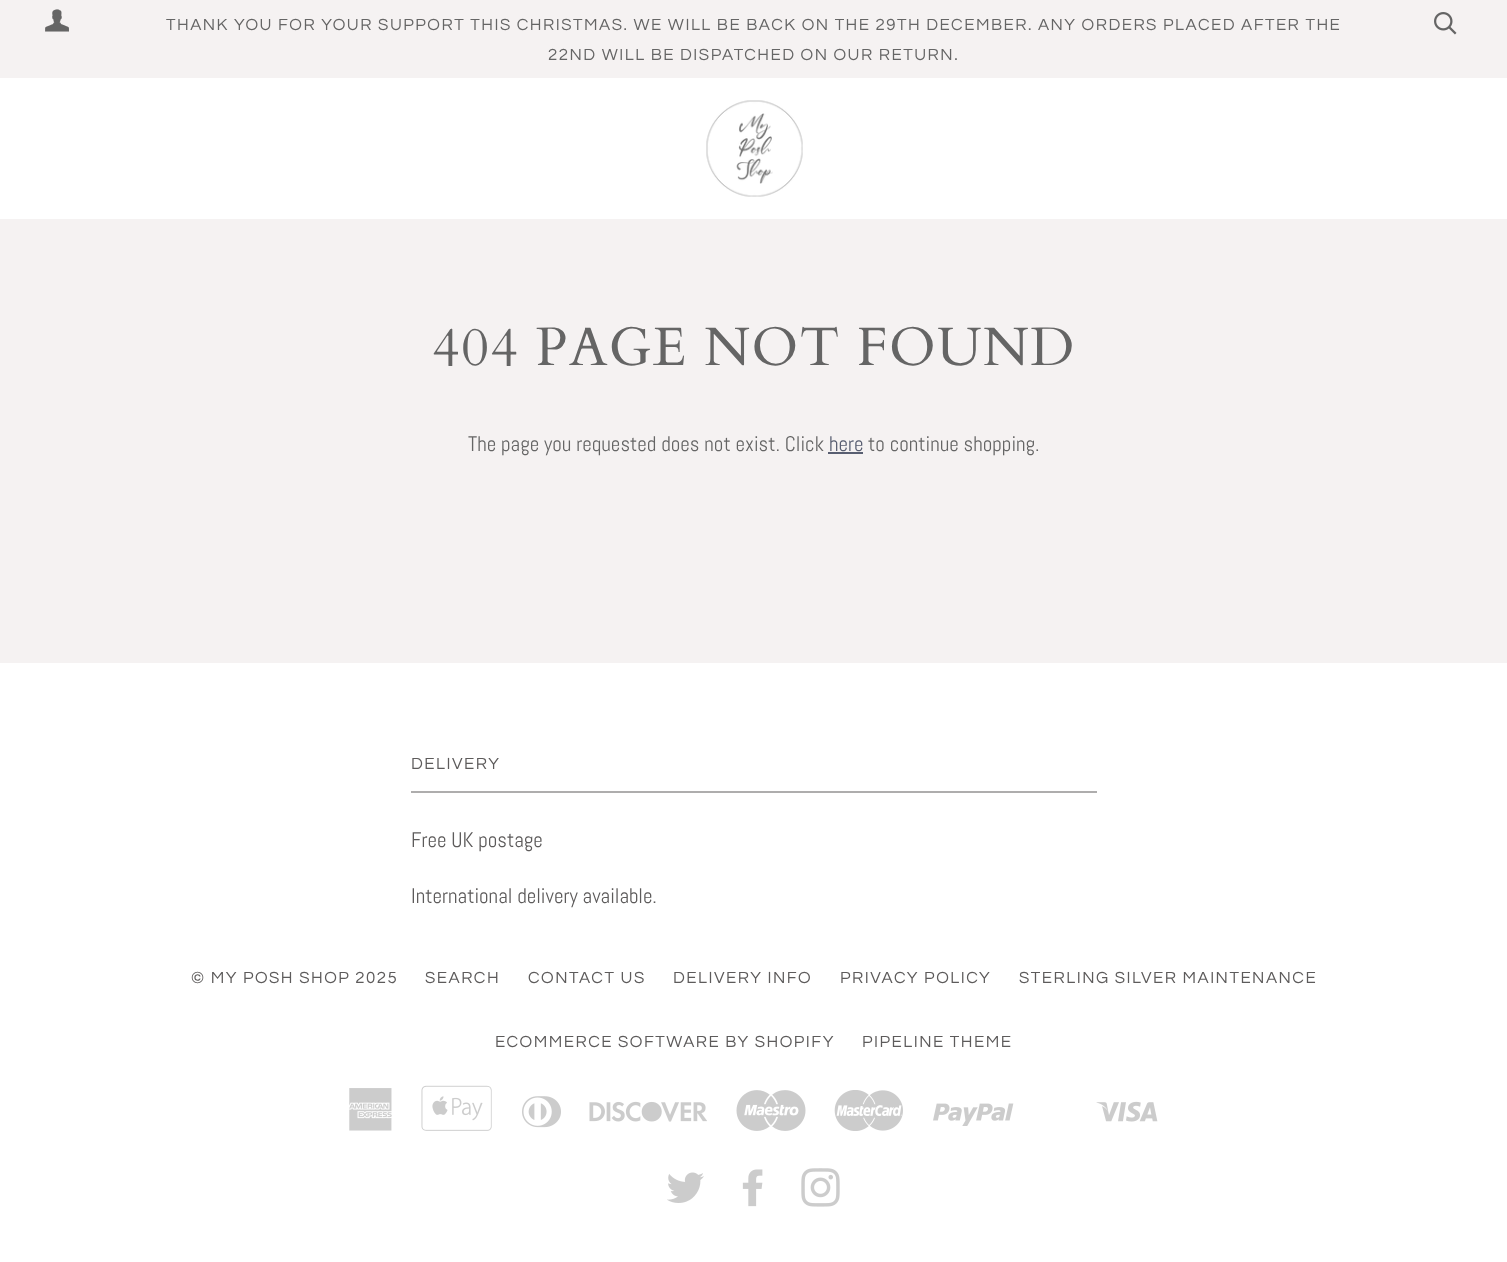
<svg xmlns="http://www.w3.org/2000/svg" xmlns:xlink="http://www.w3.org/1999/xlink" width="1507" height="1262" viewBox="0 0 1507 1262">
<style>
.cls-1{font:16.8px Questrial;letter-spacing:1.5px;fill:#656565}
.cls-2{font:54px Cardo;letter-spacing:1.5px;fill:#656565}
.cls-3{font:21px Abel;fill:#656565}
.cls-4{font:21px Abel;fill:#585e71}
.cls-5{font:16.8px Questrial;letter-spacing:1.5px;fill:#5d5b5b}
.cls-6{font:21px Abel;fill:#5d5b5b}
</style>
<rect width="100%" height="100%" fill="#f5f2f2"/>
<image xlink:href="image0.png" x="45" y="9" width="24" height="23"/>
<image xlink:href="image1.png" x="1434" y="12" width="23" height="23"/>
<rect fill="#ffffff" x="0" y="78" width="1507" height="141"/>
<image xlink:href="image2.png" x="706" y="100" width="97" height="97"/>
<rect fill="#585e71" x="828" y="452" width="35" height="2"/>
<rect fill="#ffffff" x="0" y="663" width="1507" height="599"/>
<rect fill="#aeadad" x="411" y="791" width="686" height="2"/>
<image xlink:href="image3.png" x="349" y="1088" width="43" height="43"/>
<image xlink:href="image4.png" x="421" y="1085" width="71" height="46"/>
<image xlink:href="image5.png" x="522" y="1096" width="39" height="32"/>
<image xlink:href="image6.png" x="589" y="1101" width="118" height="21"/>
<image xlink:href="image7.png" x="736" y="1090" width="70" height="41"/>
<image xlink:href="image8.png" x="834" y="1090" width="69" height="41"/>
<image xlink:href="image9.png" x="933" y="1103" width="81" height="23"/>
<image xlink:href="image10.png" x="1096" y="1101" width="62" height="21"/>
<image xlink:href="image11.png" x="667" y="1172" width="37" height="31"/>
<image xlink:href="image12.png" x="742" y="1169" width="21" height="38"/>
<image xlink:href="image13.png" x="801" y="1168" width="39" height="39"/>
<text class="cls-1" x="166" y="30">THANK YOU FOR YOUR SUPPORT THIS CHRISTMAS. WE WILL BE BACK ON THE 29TH DECEMBER. ANY ORDERS PLACED AFTER THE</text>
<text class="cls-1" x="548" y="60">22ND WILL BE DISPATCHED ON OUR RETURN.</text>
<text class="cls-2" x="432" y="365">404 PAGE NOT FOUND</text>
<text class="cls-3" x="468" y="451">The page you requested does not exist. Click</text>
<text class="cls-4" x="829" y="451">here</text>
<text class="cls-3" x="868" y="451">to continue shopping.</text>
<text class="cls-5" x="411" y="769">DELIVERY</text>
<text class="cls-6" x="411" y="847">Free UK postage</text>
<text class="cls-6" x="411" y="903">International delivery available.</text>
<text class="cls-5" x="191" y="983">© MY POSH SHOP 2025</text>
<text class="cls-5" x="425" y="983">SEARCH</text>
<text class="cls-5" x="528" y="983">CONTACT US</text>
<text class="cls-5" x="673" y="983">DELIVERY INFO</text>
<text class="cls-5" x="840" y="983">PRIVACY POLICY</text>
<text class="cls-5" x="1019" y="983">STERLING SILVER MAINTENANCE</text>
<text class="cls-5" x="495" y="1047">ECOMMERCE SOFTWARE BY SHOPIFY</text>
<text class="cls-5" x="862" y="1047">PIPELINE THEME</text>
</svg>
